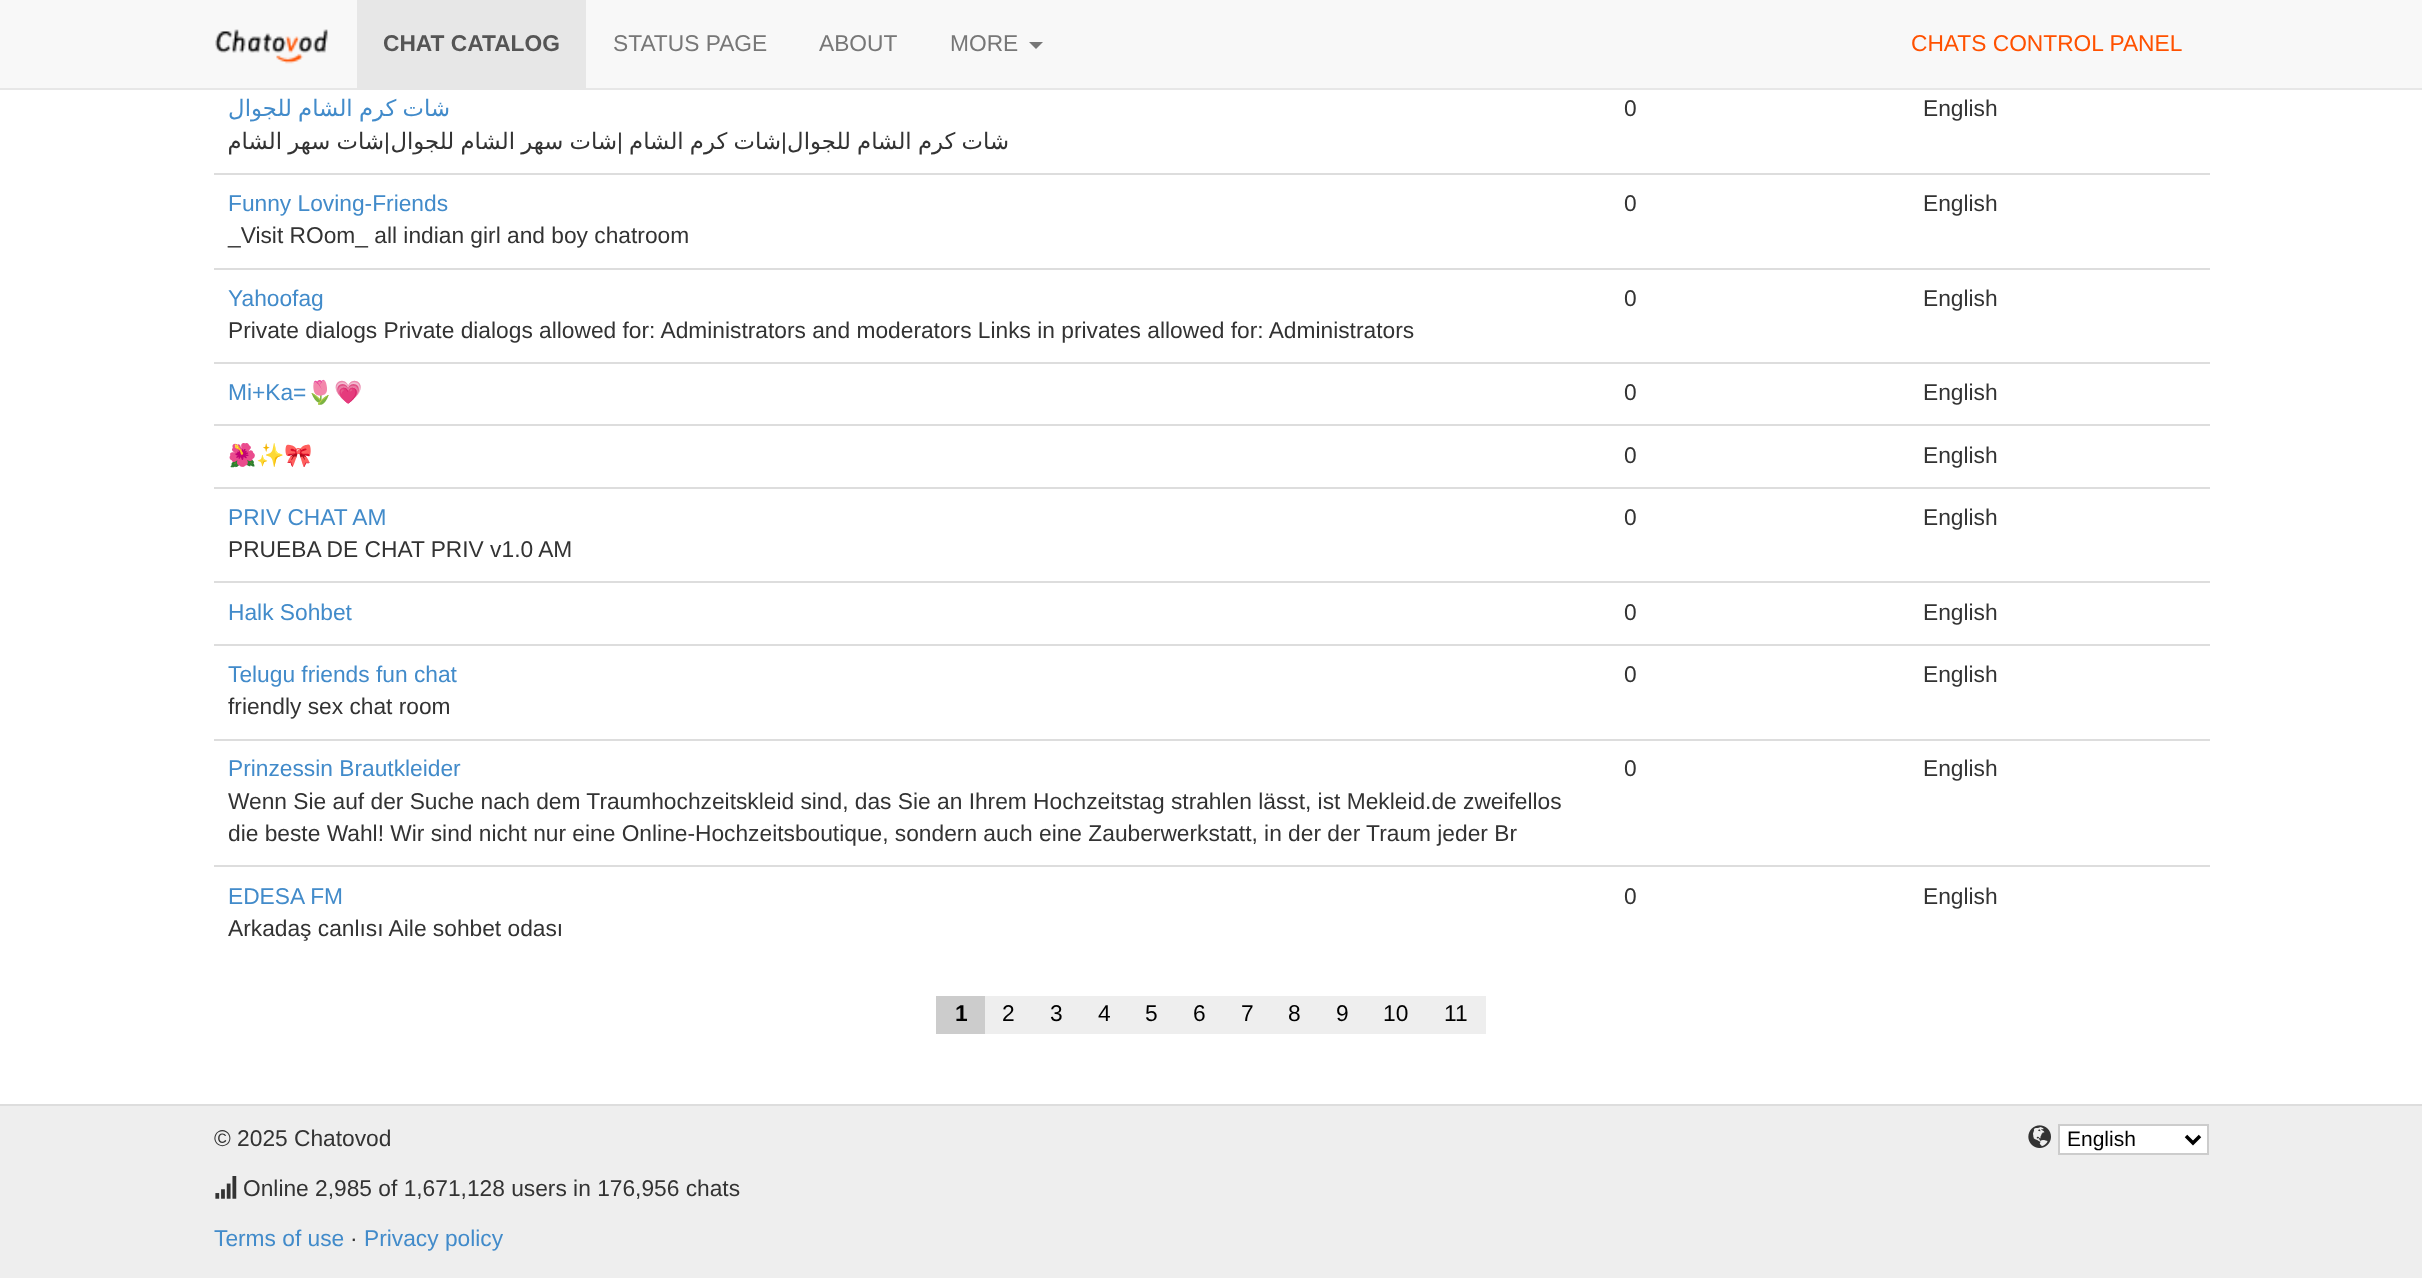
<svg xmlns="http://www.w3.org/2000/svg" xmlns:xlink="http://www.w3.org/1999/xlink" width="2422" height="1278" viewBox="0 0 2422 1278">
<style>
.cls-1{font:bold 22.75px Liberation Sans;fill:#555555}
.cls-2{font:22.75px Liberation Sans;fill:#777777}
.cls-3{font:22.75px Liberation Sans;fill:#ff5100}
.cls-4{font:22.75px DejaVu Sans;direction:rtl;fill:#428bca}
.cls-5{font:22.75px DejaVu Sans;direction:rtl;fill:#333333}
.cls-6{font:22.75px Liberation Sans;direction:rtl;fill:#333333}
.cls-7{font:22.75px Liberation Sans;fill:#333333}
.cls-8{font:22.75px Liberation Sans;fill:#428bca}
.cls-9{font:22.75px Noto Color Emoji;fill:#428bca}
.cls-10{font:bold 22.75px Liberation Sans;fill:#000000}
.cls-11{font:22.75px Liberation Sans;fill:#000000}
.cls-12{font:21px Liberation Sans;fill:#000000}
</style>
<rect width="100%" height="100%" fill="#ffffff"/>
<rect fill="#f8f8f8" x="0" y="0" width="2422" height="88"/>
<rect fill="#e7e7e7" x="0" y="88" width="2422" height="2"/>
<image xlink:href="image0.png" x="215" y="29" width="113" height="35"/>
<rect fill="#e7e7e7" x="357" y="0" width="229" height="88"/>
<path fill="#777777" d="M1029 42H1043L1036 49Z"/>
<rect fill="#dddddd" x="214" y="173" width="1996" height="2"/>
<rect fill="#dddddd" x="214" y="268" width="1996" height="2"/>
<rect fill="#dddddd" x="214" y="362" width="1996" height="2"/>
<rect fill="#dddddd" x="214" y="424" width="1996" height="2"/>
<rect fill="#dddddd" x="214" y="487" width="1996" height="2"/>
<rect fill="#dddddd" x="214" y="581" width="1996" height="2"/>
<rect fill="#dddddd" x="214" y="644" width="1996" height="2"/>
<rect fill="#dddddd" x="214" y="739" width="1996" height="2"/>
<rect fill="#dddddd" x="214" y="865" width="1996" height="2"/>
<rect fill="#cccccc" x="936" y="996" width="49" height="38"/>
<rect fill="#eeeeee" x="985" y="996" width="501" height="38"/>
<rect fill="#eeeeee" x="0" y="1106" width="2422" height="172"/>
<rect fill="#dddddd" x="0" y="1104" width="2422" height="2"/>
<image xlink:href="image1.png" x="215" y="1176" width="22" height="23"/>
<image xlink:href="image2.png" x="2028" y="1125" width="23" height="23"/>
<rect fill="#ffffff" stroke="#cccccc" stroke-width="2" x="2059" y="1125" width="149" height="29"/>
<path fill="none" stroke="#000000" stroke-width="3.5" d="M2186 1136L2193 1143L2200 1136"/>
<text class="cls-1" x="383" y="51">CHAT CATALOG</text>
<text class="cls-2" x="613" y="51">STATUS PAGE</text>
<text class="cls-2" x="819" y="51">ABOUT</text>
<text class="cls-2" x="950" y="51">MORE</text>
<text class="cls-3" x="1911" y="51">CHATS CONTROL PANEL</text>
<text class="cls-4" x="450" y="116" word-spacing="-1">شات كرم الشام للجوال</text>
<text class="cls-5" x="384" y="149" word-spacing="-1">شات سهر الشام</text>
<text class="cls-6" x="390" y="149">|</text>
<text class="cls-5" x="617" y="149" word-spacing="-1">شات سهر الشام للجوال</text>
<text class="cls-6" x="623" y="149">|</text>
<text class="cls-5" x="781" y="149" word-spacing="-1">شات كرم الشام</text>
<text class="cls-6" x="787" y="149">|</text>
<text class="cls-5" x="1009" y="149" word-spacing="-1">شات كرم الشام للجوال</text>
<text class="cls-7" x="1624" y="116">0</text>
<text class="cls-7" x="1923" y="116">English</text>
<text class="cls-8" x="228" y="211">Funny Loving-Friends</text>
<text class="cls-7" x="228" y="243">_Visit ROom_ all indian girl and boy chatroom</text>
<text class="cls-7" x="1624" y="211">0</text>
<text class="cls-7" x="1923" y="211">English</text>
<text class="cls-8" x="228" y="306">Yahoofag</text>
<text class="cls-7" x="228" y="338">Private dialogs Private dialogs allowed for: Administrators and moderators Links in privates allowed for: Administrators</text>
<text class="cls-7" x="1624" y="306">0</text>
<text class="cls-7" x="1923" y="306">English</text>
<text class="cls-8" x="228" y="400">Mi+Ka=</text>
<text class="cls-9" x="306" y="400">🌷💗</text>
<text class="cls-7" x="1624" y="400">0</text>
<text class="cls-7" x="1923" y="400">English</text>
<text class="cls-9" x="228" y="463">🌺✨🎀</text>
<text class="cls-7" x="1624" y="463">0</text>
<text class="cls-7" x="1923" y="463">English</text>
<text class="cls-8" x="228" y="525">PRIV CHAT AM</text>
<text class="cls-7" x="228" y="557">PRUEBA DE CHAT PRIV v1.0 AM</text>
<text class="cls-7" x="1624" y="525">0</text>
<text class="cls-7" x="1923" y="525">English</text>
<text class="cls-8" x="228" y="620">Halk Sohbet</text>
<text class="cls-7" x="1624" y="620">0</text>
<text class="cls-7" x="1923" y="620">English</text>
<text class="cls-8" x="228" y="682">Telugu friends fun chat</text>
<text class="cls-7" x="228" y="714">friendly sex chat room</text>
<text class="cls-7" x="1624" y="682">0</text>
<text class="cls-7" x="1923" y="682">English</text>
<text class="cls-8" x="228" y="776">Prinzessin Brautkleider</text>
<text class="cls-7"><tspan x="228" y="809">Wenn Sie auf der Suche nach dem Traumhochzeitskleid sind, das Sie an Ihrem Hochzeitstag strahlen lässt, ist Mekleid.de zweifellos</tspan><tspan x="228" y="841">die beste Wahl! Wir sind nicht nur eine Online-Hochzeitsboutique, sondern auch eine Zauberwerkstatt, in der der Traum jeder Br</tspan></text>
<text class="cls-7" x="1624" y="776">0</text>
<text class="cls-7" x="1923" y="776">English</text>
<text class="cls-8" x="228" y="904">EDESA FM</text>
<text class="cls-7" x="228" y="936">Arkadaş canlısı Aile sohbet odası</text>
<text class="cls-7" x="1624" y="904">0</text>
<text class="cls-7" x="1923" y="904">English</text>
<text class="cls-10" x="955" y="1021">1</text>
<text class="cls-11" x="1002" y="1021">2</text>
<text class="cls-11" x="1050" y="1021">3</text>
<text class="cls-11" x="1098" y="1021">4</text>
<text class="cls-11" x="1145" y="1021">5</text>
<text class="cls-11" x="1193" y="1021">6</text>
<text class="cls-11" x="1241" y="1021">7</text>
<text class="cls-11" x="1288" y="1021">8</text>
<text class="cls-11" x="1336" y="1021">9</text>
<text class="cls-11" x="1383" y="1021">10</text>
<text class="cls-11" x="1444" y="1021">11</text>
<text class="cls-7" x="214" y="1146">© 2025 Chatovod</text>
<text class="cls-7" x="243" y="1196">Online 2,985 of 1,671,128 users in 176,956 chats</text>
<text class="cls-8" x="214" y="1246">Terms of use</text>
<text class="cls-7" x="350" y="1246">·</text>
<text class="cls-8" x="364" y="1246">Privacy policy</text>
<text class="cls-12" x="2067" y="1146">English</text>
</svg>
